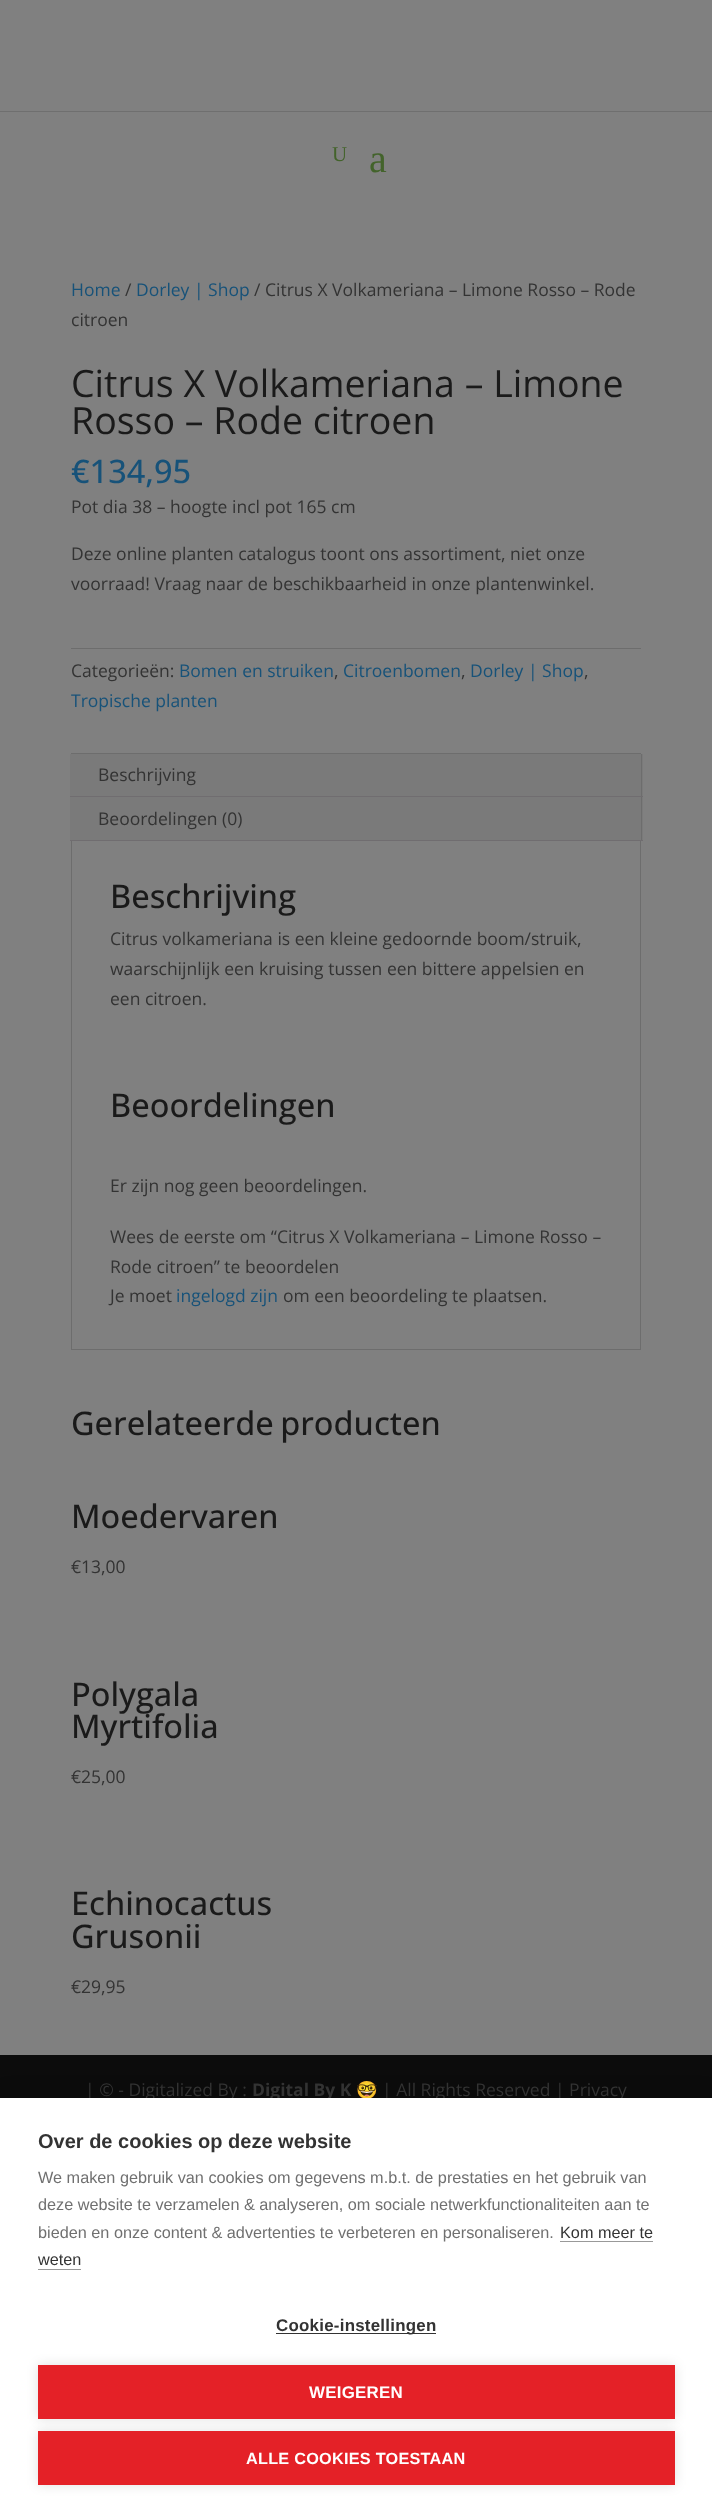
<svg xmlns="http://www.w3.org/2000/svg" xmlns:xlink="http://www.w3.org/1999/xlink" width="712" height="2516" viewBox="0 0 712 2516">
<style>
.cls-1{font:21px Liberation Serif;fill:#43632b}
.cls-2{font:40px Liberation Serif;fill:#43632b}
.cls-3{font:17.5px Open Sans;fill:#175279}
.cls-4{font:17.5px Open Sans;fill:#333333}
.cls-5{font:37.5px Open Sans;fill:#1a1a1a}
.cls-6{font:500 32.5px Open Sans;fill:#175279}
.cls-7{font:500 32.5px Open Sans;fill:#1a1a1a}
.cls-8{font:bold 17.5px Open Sans;fill:#333333}
.cls-9{font:bold 17.5px Noto Color Emoji;fill:#333333}
.cls-10{font:bold 20px Liberation Sans;fill:#333333}
.cls-11{font:16.25px Liberation Sans;fill:#707070}
.cls-12{font:16.25px Liberation Sans;fill:#333333}
.cls-13{font:bold 16.9px Liberation Sans;letter-spacing:0.25px;fill:#333333}
.cls-14{font:bold 16.9px Liberation Sans;letter-spacing:0.25px;fill:#ffffff}
.cls-15{font:bold 16.25px Liberation Sans;letter-spacing:0.25px;fill:#ffffff}
</style>
<rect width="100%" height="100%" fill="#808080"/>
<rect fill="#6f6f6f" x="0" y="111" width="712" height="1"/>
<rect fill="#6d6d6d" x="71" y="648" width="570" height="1"/>
<rect fill="none" stroke="#6d6d6d" x="71.5" y="753.5" width="569" height="596"/>
<rect fill="#7a7a7a" x="70" y="754" width="573" height="86"/>
<rect fill="#6d6d6d" x="641" y="754" width="1" height="87"/>
<rect fill="#706d70" x="70" y="796" width="573" height="1"/>
<rect fill="#706d70" x="70" y="840" width="573" height="1"/>
<rect fill="#0c0c0c" x="0" y="2055" width="712" height="43"/>
<rect fill="#000000" fill-opacity="0.1" filter="blur(12.5px)" x="0" y="2098" width="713" height="418"/>
<text class="cls-1" x="332" y="161">U</text>
<text class="cls-2" x="369" y="172">a</text>
<text class="cls-3" x="71" y="296">Home</text>
<text class="cls-4" x="125" y="296">/</text>
<text class="cls-3" x="136" y="296">Dorley | Shop</text>
<text class="cls-4" x="254" y="296">/ Citrus X Volkameriana – Limone Rosso – Rode</text>
<text class="cls-4" x="71" y="326">citroen</text>
<text class="cls-5"><tspan x="71" y="397">Citrus X Volkameriana – Limone</tspan><tspan x="71" y="434">Rosso – Rode citroen</tspan></text>
<text class="cls-6" x="71" y="483">€134,95</text>
<text class="cls-4" x="71" y="513">Pot dia 38 – hoogte incl pot 165 cm</text>
<text class="cls-4"><tspan x="71" y="560">Deze online planten catalogus toont ons assortiment, niet onze</tspan><tspan x="71" y="590">voorraad! Vraag naar de beschikbaarheid in onze plantenwinkel.</tspan></text>
<text class="cls-4" x="71" y="677">Categorieën:</text>
<text class="cls-3" x="179" y="677">Bomen en struiken</text>
<text class="cls-4" x="334" y="677">,</text>
<text class="cls-3" x="343" y="677">Citroenbomen</text>
<text class="cls-4" x="461" y="677">,</text>
<text class="cls-3" x="470" y="677">Dorley | Shop</text>
<text class="cls-4" x="584" y="677">,</text>
<text class="cls-3" x="71" y="707">Tropische planten</text>
<text class="cls-4" x="98" y="781">Beschrijving</text>
<text class="cls-4" x="98" y="825">Beoordelingen (0)</text>
<text class="cls-7" x="110" y="908">Beschrijving</text>
<text class="cls-4"><tspan x="110" y="945">Citrus volkameriana is een kleine gedoornde boom/struik,</tspan><tspan x="110" y="975">waarschijnlijk een kruising tussen een bittere appelsien en</tspan><tspan x="110" y="1005">een citroen.</tspan></text>
<text class="cls-7" x="110" y="1117">Beoordelingen</text>
<text class="cls-4" x="110" y="1192">Er zijn nog geen beoordelingen.</text>
<text class="cls-4"><tspan x="110" y="1243">Wees de eerste om “Citrus X Volkameriana – Limone Rosso –</tspan><tspan x="110" y="1273">Rode citroen” te beoordelen</tspan><tspan x="110" y="1302">Je moet</tspan></text>
<text class="cls-3" x="176" y="1302">ingelogd zijn</text>
<text class="cls-4" x="283" y="1302">om een beoordeling te plaatsen.</text>
<text class="cls-7" x="71" y="1435" word-spacing="-2">Gerelateerde producten</text>
<text class="cls-7" x="71" y="1528">Moedervaren</text>
<text class="cls-4" x="71" y="1573">€13,00</text>
<text class="cls-7"><tspan x="71" y="1706">Polygala</tspan><tspan x="71" y="1738">Myrtifolia</tspan></text>
<text class="cls-4" x="71" y="1783">€25,00</text>
<text class="cls-7"><tspan x="71" y="1915">Echinocactus</tspan><tspan x="71" y="1948">Grusonii</tspan></text>
<text class="cls-4" x="71" y="1993">€29,95</text>
<text class="cls-4" x="85" y="2096">| © - Digitalized By :</text>
<text class="cls-8" x="252" y="2096">Digital By K</text>
<text class="cls-9" x="356" y="2096">🤓</text>
<text class="cls-4" x="382" y="2096">| All Rights Reserved | Privacy</text>
<rect fill="#ffffff" x="0" y="2098" width="712" height="418"/>
<text class="cls-10" x="38" y="2148">Over de cookies op deze website</text>
<text class="cls-11"><tspan x="38" y="2183">We maken gebruik van cookies om gegevens m.b.t. de prestaties en het gebruik van</tspan><tspan x="38" y="2210">deze website te verzamelen &amp; analyseren, om sociale netwerkfunctionaliteiten aan te</tspan><tspan x="38" y="2238">bieden en onze content &amp; advertenties te verbeteren en personaliseren.</tspan></text>
<text class="cls-12" x="560" y="2238">Kom meer te</text>
<rect fill="#999999" x="560" y="2241" width="93" height="1"/>
<text class="cls-12" x="38" y="2265">weten</text>
<rect fill="#999999" x="38" y="2269" width="43" height="1"/>
<rect fill="#333333" x="276" y="2333" width="160" height="1"/>
<text class="cls-13" x="276" y="2331">Cookie-instellingen</text>
<rect fill="#000000" fill-opacity="0.12" filter="blur(6px)" x="38" y="2365" width="637" height="54"/>
<rect fill="#e42127" x="38" y="2365" width="637" height="54"/>
<text class="cls-14" x="309" y="2398">WEIGEREN</text>
<rect fill="#000000" fill-opacity="0.12" filter="blur(6px)" x="38" y="2431" width="637" height="54"/>
<rect fill="#e42127" x="38" y="2431" width="637" height="54"/>
<text class="cls-15" x="246" y="2464">ALLE COOKIES TOESTAAN</text>
</svg>
